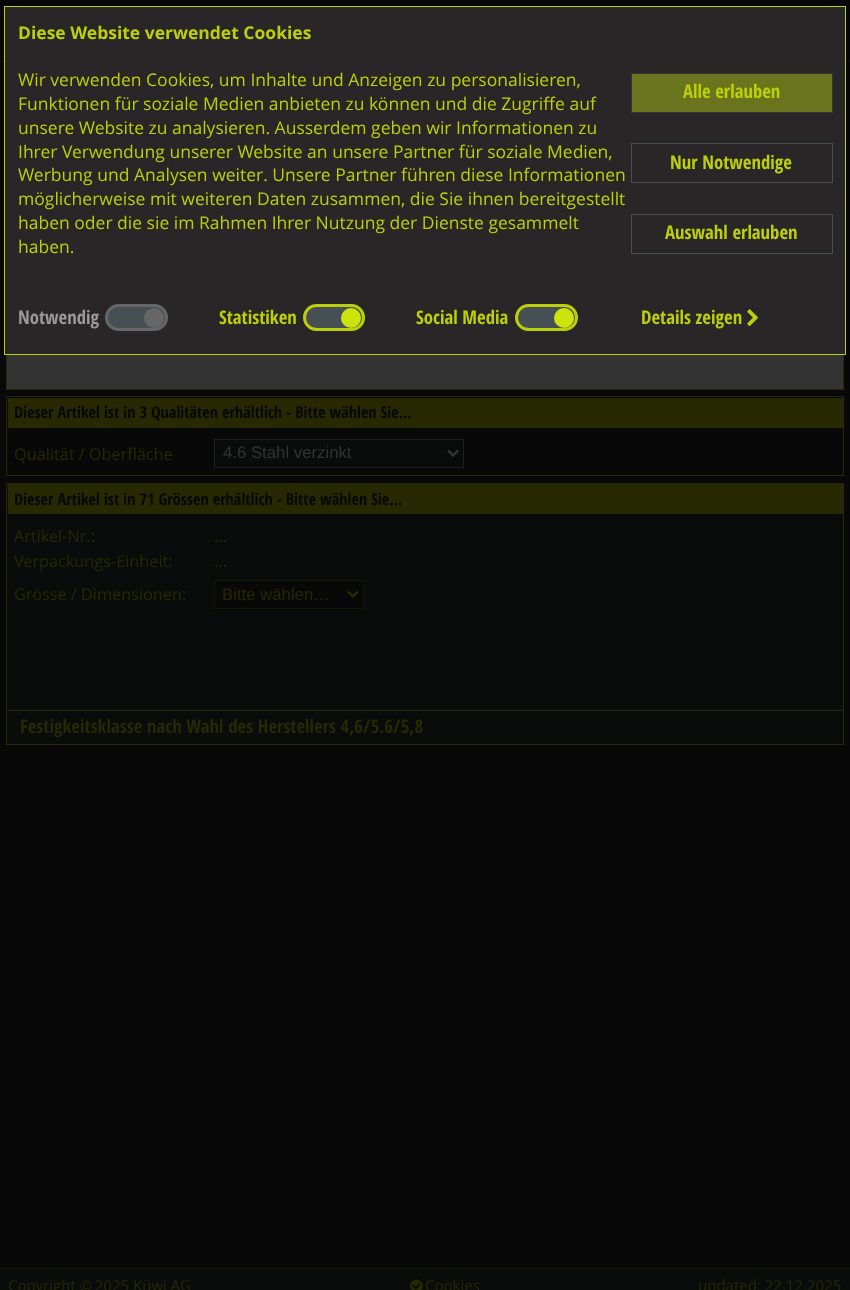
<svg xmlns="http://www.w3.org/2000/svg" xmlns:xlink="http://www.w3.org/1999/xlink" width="850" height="1290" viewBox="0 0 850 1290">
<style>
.cls-1{font:bold 17.5px Open Sans;fill:#bccf0a}
.cls-2{font:17.5px Open Sans;fill:#bccf0a}
.cls-3{font:bold 18.75px Open Sans Condensed;fill:#bccf0a}
.cls-4{font:bold 18.75px Open Sans Condensed;fill:#999999}
.cls-5{font:bold 16.25px Open Sans Condensed;fill:#080808}
.cls-6{font:16.25px Open Sans;fill:#262902}
.cls-7{font:16.75px Liberation Sans;fill:#333333}
.cls-8{font:16.75px Liberation Sans;fill:#262902}
.cls-9{font:bold 18.75px Open Sans Condensed;fill:#262902}
.cls-10{font:15px Open Sans;fill:#262902}
</style>
<rect width="100%" height="100%" fill="#080808"/>
<rect fill="#0e1011" x="0" y="61" width="850" height="1"/>
<rect fill="#333333" x="7" y="355" width="836" height="34"/>
<rect fill="none" stroke="#262902" x="6.5" y="128.5" width="837" height="261"/>
<rect fill="#282627" stroke="#bccf0a" x="4.5" y="6.5" width="841" height="348"/>
<rect fill="#69751c" stroke="#313639" x="631.5" y="73.5" width="201" height="39"/>
<rect fill="none" stroke="#454f54" x="631.5" y="143.5" width="201" height="39"/>
<rect fill="none" stroke="#454f54" x="631.5" y="214.5" width="201" height="39"/>
<rect fill="#454f54" stroke="#666666" stroke-width="3" x="106.5" y="305.5" width="60" height="24" rx="12"/>
<circle fill="#666666" cx="154" cy="318" r="10"/>
<rect fill="#454f54" stroke="#bccf0a" stroke-width="3" x="304.5" y="305.5" width="59" height="24" rx="12"/>
<circle fill="#cde40c" cx="351" cy="318" r="10"/>
<rect fill="#454f54" stroke="#bccf0a" stroke-width="3" x="516.5" y="305.5" width="60" height="24" rx="12"/>
<circle fill="#cde40c" cx="564" cy="318" r="10"/>
<image xlink:href="image0.png" x="747" y="309" width="11" height="17"/>
<rect fill="none" stroke="#262902" x="6.5" y="396.5" width="837" height="79"/>
<rect fill="#262902" x="8" y="398" width="835" height="30"/>
<rect fill="#0a0b0b" stroke="#202020" x="214.5" y="439.5" width="249" height="28"/>
<path fill="none" stroke="#333333" stroke-width="2.5" d="M448 450.5L453 455.5L458 450.5"/>
<rect fill="#0a0b0b" stroke="#262902" x="6.5" y="483.5" width="837" height="261"/>
<rect fill="#262902" x="8" y="484" width="835" height="30"/>
<rect fill="#080808" stroke="#151706" x="214.5" y="580.5" width="149" height="28"/>
<path fill="none" stroke="#262902" stroke-width="2.5" d="M348 591.5L353 596.5L358 591.5"/>
<rect fill="#262902" x="8" y="710" width="835" height="1"/>
<rect fill="#0a0b0b" x="0" y="1269" width="850" height="21"/>
<rect fill="#151706" x="0" y="1268" width="850" height="1"/>
<image xlink:href="image1.png" x="410" y="1279" width="13" height="11"/>
<text class="cls-1" x="18" y="39">Diese Website verwendet Cookies</text>
<text class="cls-2"><tspan x="18" y="86">Wir verwenden Cookies, um Inhalte und Anzeigen zu personalisieren,</tspan><tspan x="18" y="110">Funktionen für soziale Medien anbieten zu können und die Zugriffe auf</tspan><tspan x="18" y="134">unsere Website zu analysieren. Ausserdem geben wir Informationen zu</tspan><tspan x="18" y="158">Ihrer Verwendung unserer Website an unsere Partner für soziale Medien,</tspan><tspan x="18" y="181">Werbung und Analysen weiter. Unsere Partner führen diese Informationen</tspan><tspan x="18" y="205">möglicherweise mit weiteren Daten zusammen, die Sie ihnen bereitgestellt</tspan><tspan x="18" y="229">haben oder die sie im Rahmen Ihrer Nutzung der Dienste gesammelt</tspan><tspan x="18" y="253">haben.</tspan></text>
<text class="cls-3" x="683" y="98">Alle erlauben</text>
<text class="cls-3" x="670" y="169">Nur Notwendige</text>
<text class="cls-3" x="665" y="239">Auswahl erlauben</text>
<text class="cls-4" x="18" y="324">Notwendig</text>
<text class="cls-3" x="219" y="324">Statistiken</text>
<text class="cls-3" x="416" y="324">Social Media</text>
<text class="cls-3" x="641" y="324">Details zeigen</text>
<text class="cls-5" x="14" y="418">Dieser Artikel ist in 3 Qualitäten erhältlich - Bitte wählen Sie...</text>
<text class="cls-6" x="14" y="460">Qualität / Oberfläche</text>
<text class="cls-7" x="223" y="458">4.6 Stahl verzinkt</text>
<text class="cls-5" x="14" y="505">Dieser Artikel ist in 71 Grössen erhältlich - Bitte wählen Sie...</text>
<text class="cls-6" x="14" y="542">Artikel-Nr.:</text>
<text class="cls-6" x="214" y="542">...</text>
<text class="cls-6" x="14" y="567">Verpackungs-Einheit:</text>
<text class="cls-6" x="214" y="567">...</text>
<text class="cls-6" x="14" y="600">Grösse / Dimensionen:</text>
<text class="cls-8" x="222" y="600">Bitte wählen…</text>
<text class="cls-9" x="20" y="733">Festigkeitsklasse nach Wahl des Herstellers 4,6/5.6/5,8</text>
<text class="cls-10" x="8" y="1291">Copyright © 2025 Küwi AG</text>
<text class="cls-10" x="425" y="1291">Cookies</text>
<text class="cls-10" x="698" y="1291">updated: 22.12.2025</text>
</svg>
